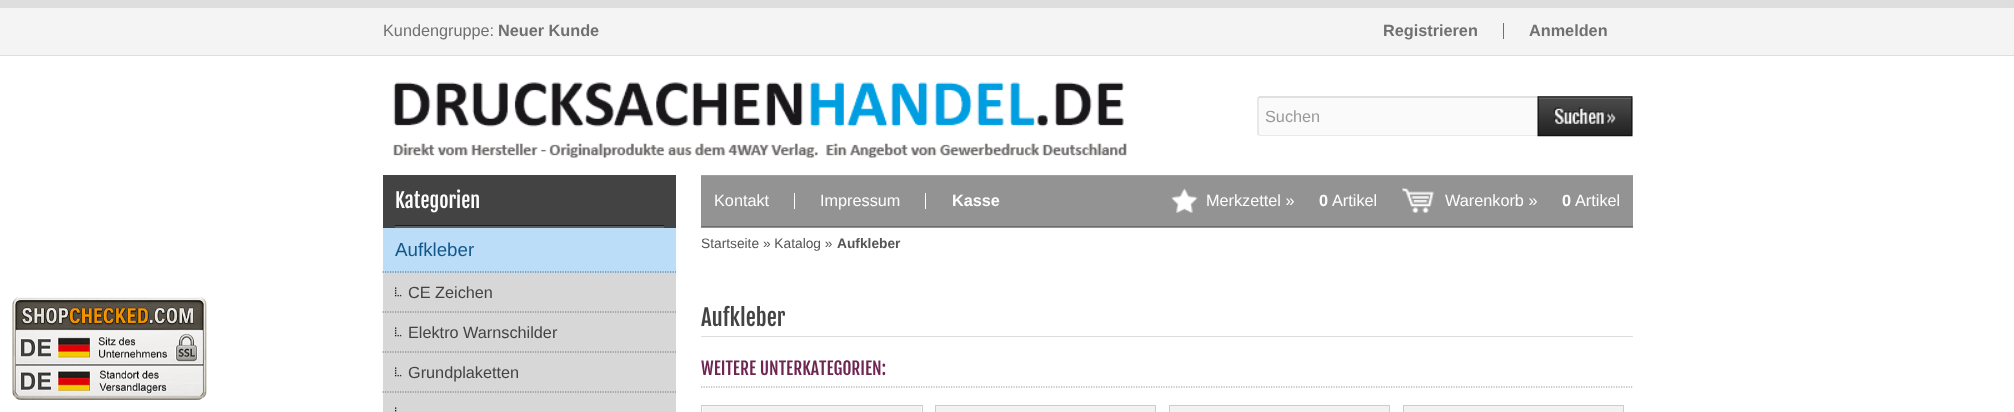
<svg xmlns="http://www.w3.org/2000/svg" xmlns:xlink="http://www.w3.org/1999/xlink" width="2014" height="412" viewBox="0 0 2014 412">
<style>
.cls-1{font:16.25px Arimo;fill:#707070}
.cls-2{font:bold 16.25px Arimo;fill:#707070}
.cls-3{font:16.25px Arimo;fill:#999999}
.cls-4{font:20px Fjalla One;fill:#fefefe}
.cls-5{font:18.75px Arimo;fill:#11588c}
.cls-6{font:16.25px Arimo;fill:#434343}
.cls-7{font:16.25px Arimo;fill:#fefefe}
.cls-8{font:bold 16.25px Arimo;fill:#fefefe}
.cls-9{font:13.75px Arimo;fill:#555555}
.cls-10{font:bold 13.75px Arimo;fill:#555555}
.cls-11{font:22.5px Fjalla One;fill:#434343}
.cls-12{font:17.5px Fjalla One;fill:#6d2551}
</style>
<rect width="100%" height="100%" fill="#ffffff"/>
<rect fill="#f4f4f4" x="0" y="8" width="2014" height="47"/>
<rect fill="#dedede" x="0" y="0" width="2014" height="8"/>
<rect fill="#dedede" x="0" y="55" width="2014" height="1"/>
<rect fill="#707070" x="1503" y="23" width="1" height="16"/>
<image xlink:href="image0.png" x="393" y="82" width="734" height="76"/>
<rect fill="#fafafa" x="1258" y="96" width="375" height="40" rx="2.5"/>
<path fill="none" stroke="#c6c6c6" stroke-width="1.2" d="M1258.5 97.5L1260 97H1630L1631.5 97.5"/>
<path fill="none" stroke="#dadada" stroke-width="1.2" d="M1631.5 97.5L1632 98.5V134L1631.5 135"/>
<path fill="none" stroke="#eaeaea" stroke-width="1.2" d="M1631.5 135L1630 135.5H1260L1258.5 135"/>
<path fill="none" stroke="#dadada" stroke-width="1.2" d="M1258.5 135L1258 134V98.5L1258.5 97.5"/>
<image xlink:href="image1.png" x="1537" y="96" width="96" height="41"/>
<image xlink:href="image2.png" x="12" y="297" width="195" height="103"/>
<rect fill="#434343" x="383" y="175" width="293" height="53"/>
<rect fill="#5e5e5e" x="395" y="226" width="269" height="2"/>
<rect fill="#1d1d1d" x="395" y="225" width="269" height="1"/>
<rect fill="#bbddf7" x="383" y="228" width="293" height="45"/>
<path fill="none" stroke="#656565" stroke-width="1.2" stroke-dasharray="1.25 1.25" d="M382.5 272H676"/>
<rect fill="#d7d7d7" x="383" y="273" width="293" height="139"/>
<image xlink:href="image3.png" x="395" y="287" width="7" height="10"/>
<path fill="none" stroke="#767676" stroke-width="1.2" stroke-dasharray="1.25 1.25" d="M382.5 312H676"/>
<image xlink:href="image3.png" x="395" y="327" width="7" height="10"/>
<path fill="none" stroke="#767676" stroke-width="1.2" stroke-dasharray="1.25 1.25" d="M382.5 352H676"/>
<image xlink:href="image3.png" x="395" y="367" width="7" height="10"/>
<path fill="none" stroke="#767676" stroke-width="1.2" stroke-dasharray="1.25 1.25" d="M382.5 392H676"/>
<image xlink:href="image4.png" x="395" y="407" width="2" height="5"/>
<rect fill="#939393" x="701" y="176" width="932" height="52"/>
<rect fill="#a1a1a1" x="701" y="175" width="932" height="1"/>
<rect fill="#6d6d6d" x="701" y="226" width="932" height="1"/>
<rect fill="#ffffff" x="794" y="193" width="1" height="16"/>
<rect fill="#ffffff" x="925" y="193" width="1" height="16"/>
<image xlink:href="image5.png" x="1171" y="188" width="27" height="25"/>
<image xlink:href="image6.png" x="1402" y="187" width="32" height="26"/>
<rect fill="#dddddd" x="701" y="336" width="932" height="1"/>
<path fill="none" stroke="#999999" stroke-width="1.2" stroke-dasharray="1.25 1.25" d="M701 387H1632.5"/>
<rect fill="none" stroke="#cccccc" x="701.5" y="405.5" width="221" height="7"/>
<rect fill="#f2f2f2" x="703" y="406" width="218" height="6"/>
<rect fill="none" stroke="#cccccc" x="935.5" y="405.5" width="220" height="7"/>
<rect fill="#f2f2f2" x="936" y="406" width="219" height="6"/>
<rect fill="none" stroke="#cccccc" x="1169.5" y="405.5" width="220" height="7"/>
<rect fill="#f2f2f2" x="1170" y="406" width="219" height="6"/>
<rect fill="none" stroke="#cccccc" x="1403.5" y="405.5" width="220" height="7"/>
<rect fill="#f2f2f2" x="1404" y="406" width="219" height="6"/>
<text class="cls-1" x="383" y="36">Kundengruppe:</text>
<text class="cls-2" x="498" y="36">Neuer Kunde</text>
<text class="cls-2" x="1383" y="36">Registrieren</text>
<text class="cls-2" x="1529" y="36">Anmelden</text>
<text class="cls-3" x="1265" y="122">Suchen</text>
<text class="cls-4" x="395" y="208">Kategorien</text>
<text class="cls-5" x="395" y="256">Aufkleber</text>
<text class="cls-6" x="408" y="298">CE Zeichen</text>
<text class="cls-6" x="408" y="338">Elektro Warnschilder</text>
<text class="cls-6" x="408" y="378">Grundplaketten</text>
<text class="cls-7" x="714" y="206">Kontakt</text>
<text class="cls-7" x="820" y="206">Impressum</text>
<text class="cls-8" x="952" y="206">Kasse</text>
<text class="cls-7" x="1206" y="206">Merkzettel »</text>
<text class="cls-8" x="1319" y="206">0</text>
<text class="cls-7" x="1332" y="206">Artikel</text>
<text class="cls-7" x="1445" y="206">Warenkorb »</text>
<text class="cls-8" x="1562" y="206">0</text>
<text class="cls-7" x="1575" y="206">Artikel</text>
<text class="cls-9" x="701" y="248">Startseite » Katalog »</text>
<text class="cls-10" x="837" y="248">Aufkleber</text>
<text class="cls-11" x="701" y="326">Aufkleber</text>
<text class="cls-12" x="701" y="375">WEITERE UNTERKATEGORIEN:</text>
</svg>
